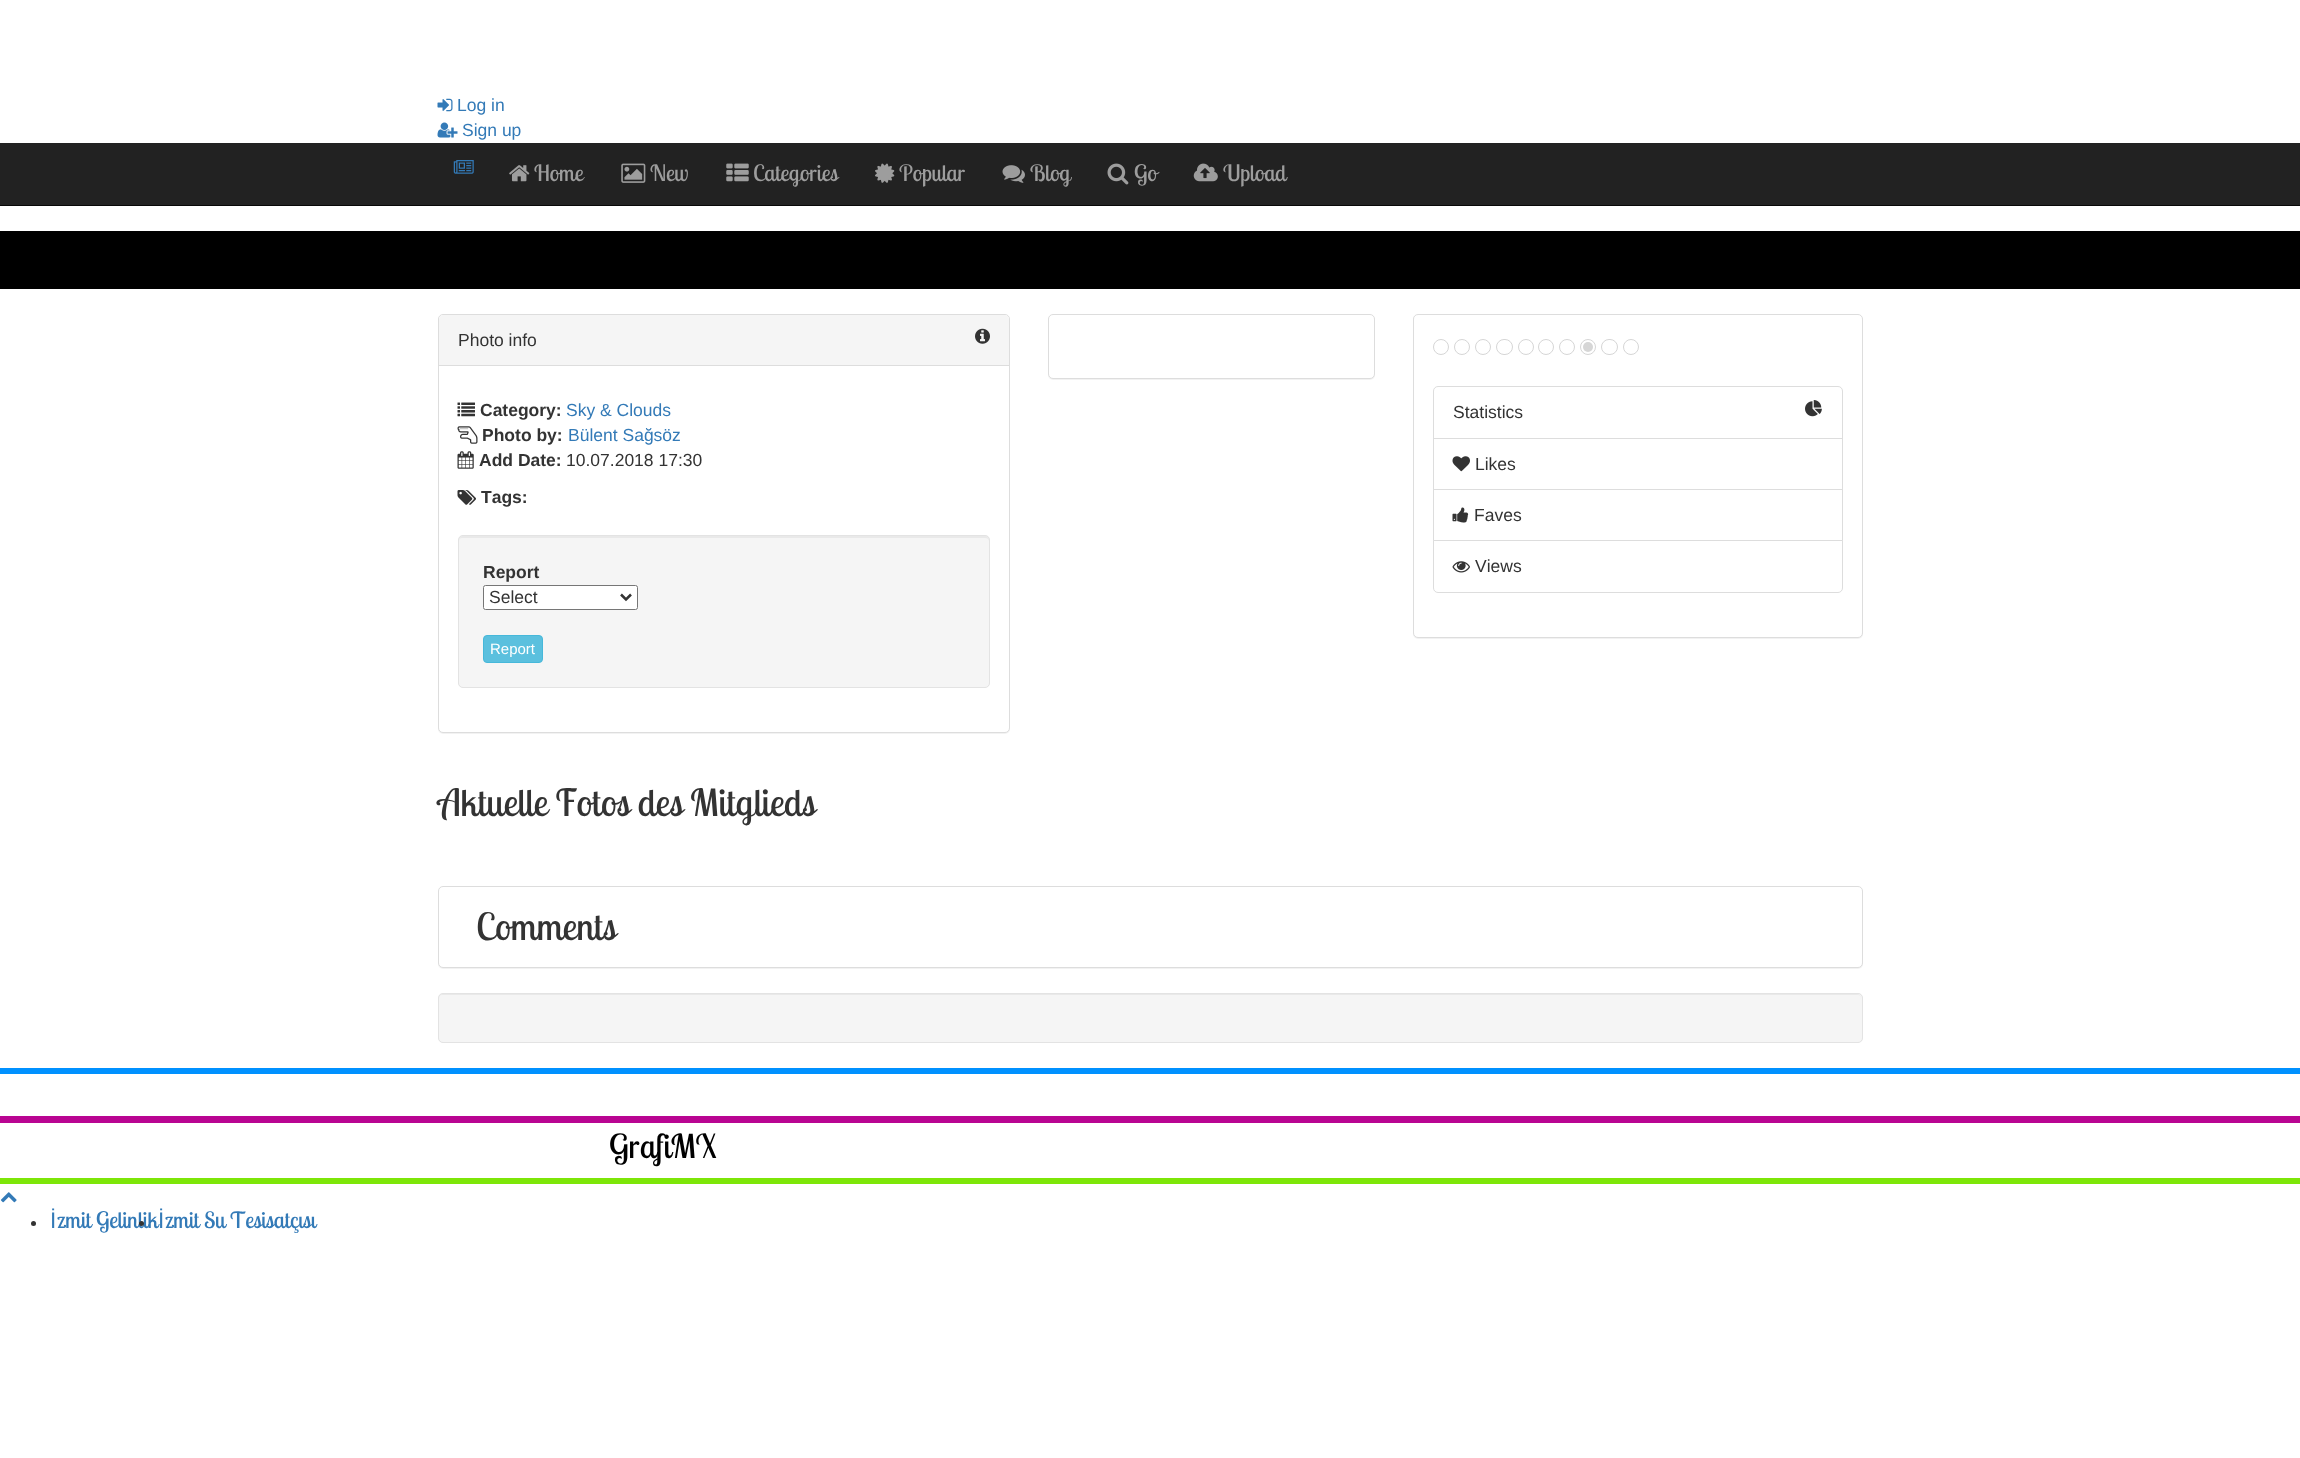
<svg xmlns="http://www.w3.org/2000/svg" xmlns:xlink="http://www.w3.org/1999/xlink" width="2300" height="1458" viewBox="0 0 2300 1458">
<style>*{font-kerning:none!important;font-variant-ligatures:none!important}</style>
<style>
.cls-1{font:17.5px Liberation Sans;fill:#337ab7}
.cls-2{font:22.5px Lobster Two;fill:#9d9d9d}
.cls-3{font:17.5px Liberation Sans;fill:#333333}
.cls-4{font:bold 17.5px Liberation Sans;fill:#333333}
.cls-5{font:15px Liberation Sans;fill:#ffffff}
.cls-6{font:37.5px Lobster Two;fill:#333333}
.cls-7{font:33px Lobster Two;fill:#000000}
.cls-8{font:22.5px Liberation Sans;fill:#337ab7}
.cls-9{font:22.5px Lobster Two;fill:#337ab7}
</style>
<rect width="100%" height="100%" fill="#ffffff"/>
<image xlink:href="image0.png" x="437" y="98" width="16" height="14"/>
<image xlink:href="image1.png" x="437" y="122" width="21" height="16"/>
<rect fill="#222222" x="0" y="143" width="2300" height="62"/>
<rect fill="#080808" x="0" y="205" width="2300" height="1"/>
<image xlink:href="image2.png" x="453" y="160" width="21" height="14"/>
<image xlink:href="image3.png" x="509" y="165" width="21" height="17"/>
<image xlink:href="image4.png" x="621" y="163" width="25" height="20"/>
<image xlink:href="image5.png" x="726" y="163" width="23" height="19"/>
<image xlink:href="image6.png" x="875" y="163" width="20" height="20"/>
<image xlink:href="image7.png" x="1002" y="165" width="23" height="18"/>
<image xlink:href="image8.png" x="1107" y="163" width="22" height="22"/>
<image xlink:href="image9.png" x="1193" y="163" width="25" height="19"/>
<rect fill="#000000" x="0" y="231" width="2300" height="58"/>
<rect fill="#000000" fill-opacity="0.05" filter="blur(0.5px)" x="438" y="315" width="572" height="419" rx="5"/>
<rect fill="#ffffff" stroke="#dddddd" x="438.5" y="314.5" width="571" height="418" rx="4.5"/>
<path fill="#f5f5f5" d="M443 315H1005C1007 315 1009 317 1009 319V366H439V319C439 317 441 315 443 315Z"/>
<rect fill="#dddddd" x="439" y="365" width="570" height="1"/>
<image xlink:href="image10.png" x="975" y="328" width="15" height="16"/>
<image xlink:href="image11.png" x="457" y="402" width="18" height="15"/>
<image xlink:href="image12.png" x="457" y="426" width="21" height="18"/>
<image xlink:href="image13.png" x="457" y="451" width="17" height="18"/>
<image xlink:href="image14.png" x="457" y="490" width="19" height="15"/>
<rect fill="#f5f5f5" x="458" y="535" width="532" height="153" rx="5"/>
<path fill="#e9e9e9" d="M462 538H985C987 538 989 539 989 541V540C989 538 987 536 985 536H463C461 536 459 538 459 540V541C459 539 460 538 462 538Z"/>
<rect fill="none" stroke="#e3e3e3" x="458.5" y="535.5" width="531" height="152" rx="4.5"/>
<rect fill="#ffffff" stroke="#767676" x="483.5" y="585.5" width="154" height="24" rx="2"/>
<path fill="none" stroke="#333333" stroke-width="2.5" d="M621 594.5L626 599.5L631 594.5"/>
<rect fill="#5bc0de" stroke="#46b8da" x="483.5" y="635.5" width="59" height="27" rx="3.5"/>
<rect fill="#000000" fill-opacity="0.05" filter="blur(0.5px)" x="1048" y="315" width="327" height="65" rx="5"/>
<rect fill="#ffffff" stroke="#dddddd" x="1048.5" y="314.5" width="326" height="64" rx="4.5"/>
<rect fill="#000000" fill-opacity="0.05" filter="blur(0.5px)" x="1413" y="315" width="450" height="324" rx="5"/>
<rect fill="#ffffff" stroke="#dddddd" x="1413.5" y="314.5" width="449" height="323" rx="4.5"/>
<circle fill="none" stroke="#d6d6d6" cx="1441" cy="347" r="7.5"/>
<circle fill="none" stroke="#d6d6d6" cx="1462" cy="347" r="7.5"/>
<circle fill="none" stroke="#d6d6d6" cx="1483" cy="347" r="7.5"/>
<rect fill="none" stroke="#d6d6d6" x="1496.5" y="339.5" width="16" height="15" rx="7.5"/>
<circle fill="none" stroke="#d6d6d6" cx="1526" cy="347" r="7.5"/>
<circle fill="none" stroke="#d6d6d6" cx="1546" cy="347" r="7.5"/>
<circle fill="none" stroke="#d6d6d6" cx="1567" cy="347" r="7.5"/>
<circle fill="none" stroke="#d6d6d6" cx="1588" cy="347" r="7.5"/>
<circle fill="#d6d6d6" cx="1588" cy="347" r="5"/>
<rect fill="none" stroke="#d6d6d6" x="1601.5" y="339.5" width="16" height="15" rx="7.5"/>
<circle fill="none" stroke="#d6d6d6" cx="1631" cy="347" r="7.5"/>
<path fill="none" stroke="#dddddd" d="M1438 386.5H1838C1840.5 386.5 1842.5 388.5 1842.5 391V438.5H1433.5V391C1433.5 388.5 1435.5 386.5 1438 386.5Z"/>
<image xlink:href="image15.png" x="1805" y="400" width="17" height="17"/>
<rect fill="none" stroke="#dddddd" x="1433.5" y="438.5" width="409" height="51"/>
<image xlink:href="image16.png" x="1452" y="456" width="18" height="16"/>
<rect fill="none" stroke="#dddddd" x="1433.5" y="489.5" width="409" height="51"/>
<image xlink:href="image17.png" x="1452" y="507" width="17" height="16"/>
<path fill="#ffffff" stroke="#dddddd" d="M1433.5 540.5H1842.5V588C1842.5 590.5 1840.5 592.5 1838 592.5H1438C1435.5 592.5 1433.5 590.5 1433.5 588Z"/>
<image xlink:href="image18.png" x="1452" y="561" width="18" height="12"/>
<rect fill="#000000" fill-opacity="0.05" filter="blur(0.5px)" x="438" y="888" width="1425" height="81" rx="5"/>
<rect fill="#ffffff" stroke="#dddddd" x="438.5" y="886.5" width="1424" height="81" rx="4.5"/>
<rect fill="#f5f5f5" x="438" y="993" width="1425" height="50" rx="5"/>
<path fill="#e9e9e9" d="M442 995H1858C1860 995 1861 997 1861 999V998C1861 996 1859 994 1857 994H443C441 994 439 996 439 998V999C439 997 440 995 442 995Z"/>
<rect fill="none" stroke="#e3e3e3" x="438.5" y="993.5" width="1424" height="49" rx="4.5"/>
<rect fill="#0091ff" x="0" y="1068" width="2300" height="6"/>
<rect fill="#b90592" x="0" y="1116" width="2300" height="7"/>
<rect fill="#7de608" x="0" y="1178" width="2300" height="6"/>
<image xlink:href="image19.png" x="0" y="1192" width="17" height="11"/>
<circle fill="#333333" cx="33.5" cy="1223.5" r="2.5"/>
<text class="cls-1" x="457" y="111">Log in</text>
<text class="cls-1" x="462" y="136">Sign up</text>
<text class="cls-2" x="534" y="181">Home</text>
<text class="cls-2" x="650" y="181">New</text>
<text class="cls-2" x="753" y="181">Categories</text>
<text class="cls-2" x="899" y="181">Popular</text>
<text class="cls-2" x="1030" y="181">Blog</text>
<text class="cls-2" x="1134" y="181">Go</text>
<text class="cls-2" x="1223" y="181">Upload</text>
<text class="cls-3" x="458" y="346">Photo info</text>
<text class="cls-4" x="480" y="416">Category:</text>
<text class="cls-1" x="566" y="416">Sky &amp; Clouds</text>
<text class="cls-4" x="482" y="441">Photo by:</text>
<text class="cls-1" x="568" y="441">Bülent Sağsöz</text>
<text class="cls-4" x="479" y="466">Add Date:</text>
<text class="cls-3" x="566" y="466">10.07.2018 17:30</text>
<text class="cls-4" x="481" y="503">Tags:</text>
<text class="cls-4" x="483" y="578">Report</text>
<text class="cls-3" x="489" y="603">Select</text>
<text class="cls-5" x="490" y="654">Report</text>
<text class="cls-3" x="1453" y="418">Statistics</text>
<text class="cls-3" x="1475" y="470">Likes</text>
<text class="cls-3" x="1474" y="521">Faves</text>
<text class="cls-3" x="1475" y="572">Views</text>
<text class="cls-6" x="438" y="816">Aktuelle Fotos des Mitglieds</text>
<text class="cls-6" x="476" y="940">Comments</text>
<text class="cls-7" x="609" y="1158">GrafiMX</text>
<text class="cls-8" x="50" y="1228">İ</text>
<text class="cls-9" x="56" y="1228">zmit Gelinlik</text>
<circle fill="#333333" cx="141.5" cy="1223.5" r="2.5"/>
<text class="cls-8" x="158" y="1228">İ</text>
<text class="cls-9" x="164" y="1228">zmit Su Tesisatçısı</text>
</svg>
